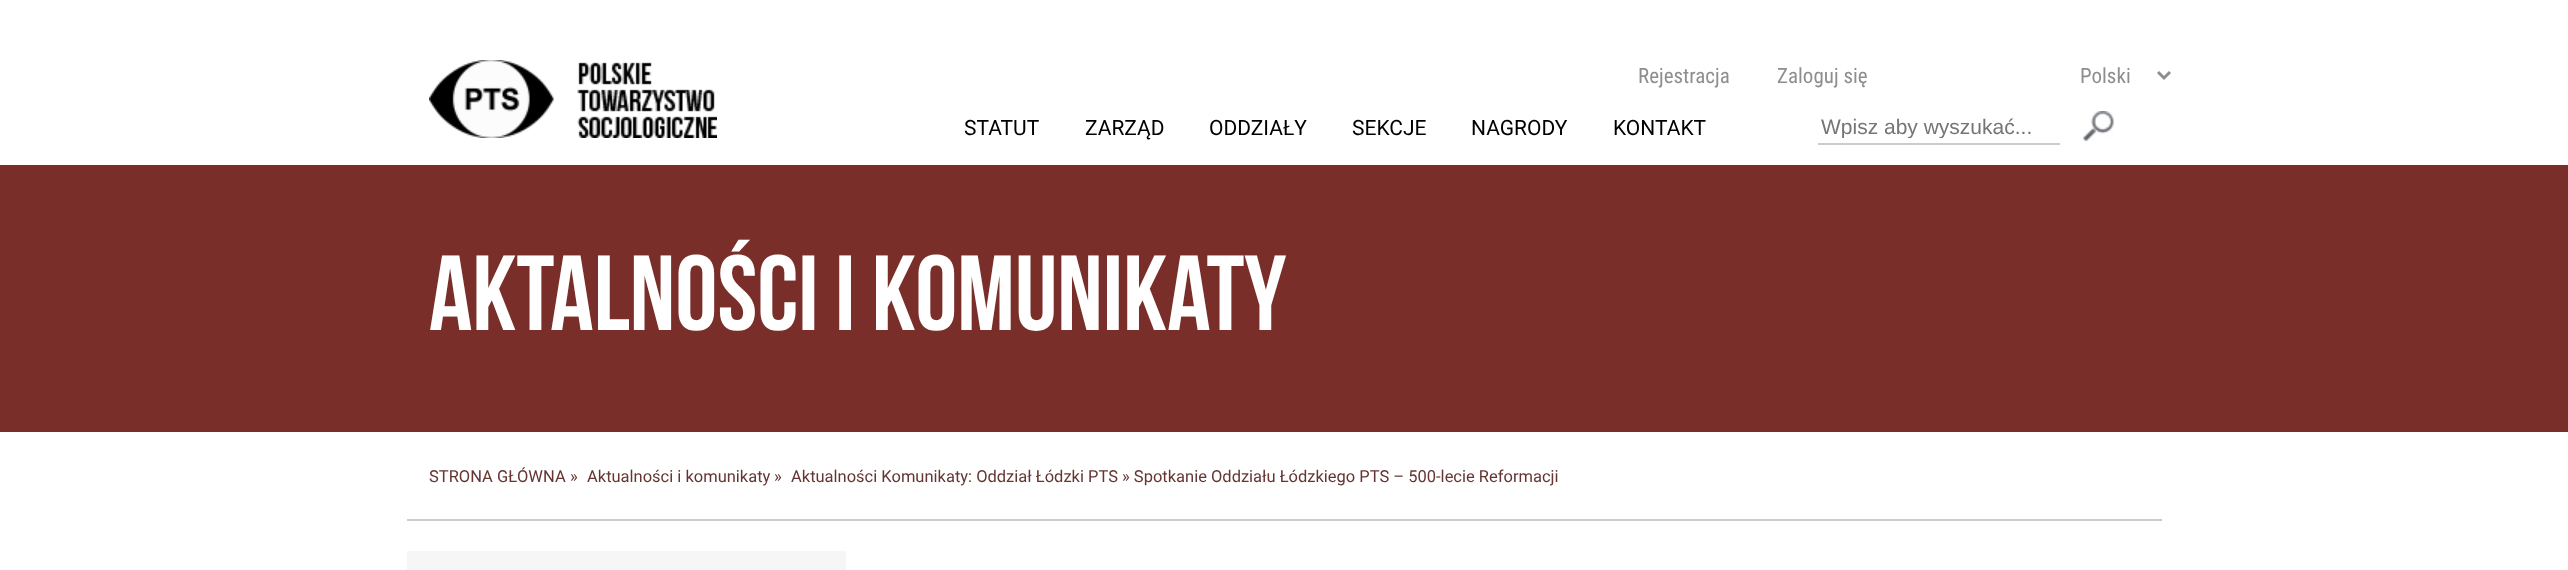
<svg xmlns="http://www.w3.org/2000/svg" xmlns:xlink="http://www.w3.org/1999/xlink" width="2568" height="570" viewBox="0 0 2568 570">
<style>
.cls-1{font:21px Roboto Condensed;fill:#8e8e8e}
.cls-2{font:21px Roboto;fill:#000000}
.cls-3{font:21px Liberation Sans;fill:#757575}
.cls-4{font:106.5px Bebas Neue;fill:#ffffff}
.cls-5{font:16.5px Roboto;fill:#643532}
</style>
<defs>
<clipPath id="clip1"><rect x="1821" y="114" width="236" height="24"/></clipPath>
</defs>
<rect width="100%" height="100%" fill="#ffffff"/>
<image xlink:href="image0.png" x="429" y="60" width="288" height="78"/>
<path fill="none" stroke="#8e8e8e" stroke-width="3" d="M2158 72L2164 78L2170 72"/>
<rect fill="#cccccc" x="1818" y="143" width="242" height="2"/>
<image xlink:href="image1.png" x="2083" y="111" width="31" height="30"/>
<rect fill="#792e29" x="0" y="165" width="2568" height="267"/>
<rect fill="#cccccc" x="407" y="519" width="1755" height="2"/>
<rect fill="#f6f6f6" x="407" y="551" width="439" height="19"/>
<text class="cls-1" x="1638" y="83">Rejestracja</text>
<text class="cls-1" x="1777" y="83">Zaloguj się</text>
<text class="cls-1" x="2080" y="83">Polski</text>
<text class="cls-2" x="964" y="135">STATUT</text>
<text class="cls-2" x="1085" y="135">ZARZĄD</text>
<text class="cls-2" x="1209" y="135">ODDZIAŁY</text>
<text class="cls-2" x="1352" y="135">SEKCJE</text>
<text class="cls-2" x="1471" y="135">NAGRODY</text>
<text class="cls-2" x="1613" y="135">KONTAKT</text>
<g clip-path="url(#clip1)">
<text class="cls-3" x="1821" y="134">Wpisz aby wyszukać...</text>
</g>
<text class="cls-4" x="429" y="330">AKTALNOŚCI I KOMUNIKATY</text>
<text class="cls-5" x="429" y="482">STRONA GŁÓWNA</text>
<text class="cls-5" x="570" y="482">»</text>
<text class="cls-5" x="587" y="482">Aktualności i komunikaty</text>
<text class="cls-5" x="774" y="482">»</text>
<text class="cls-5" x="791" y="482">Aktualności Komunikaty: Oddział Łódzki PTS » Spotkanie Oddziału Łódzkiego PTS – 500-lecie Reformacji</text>
</svg>
